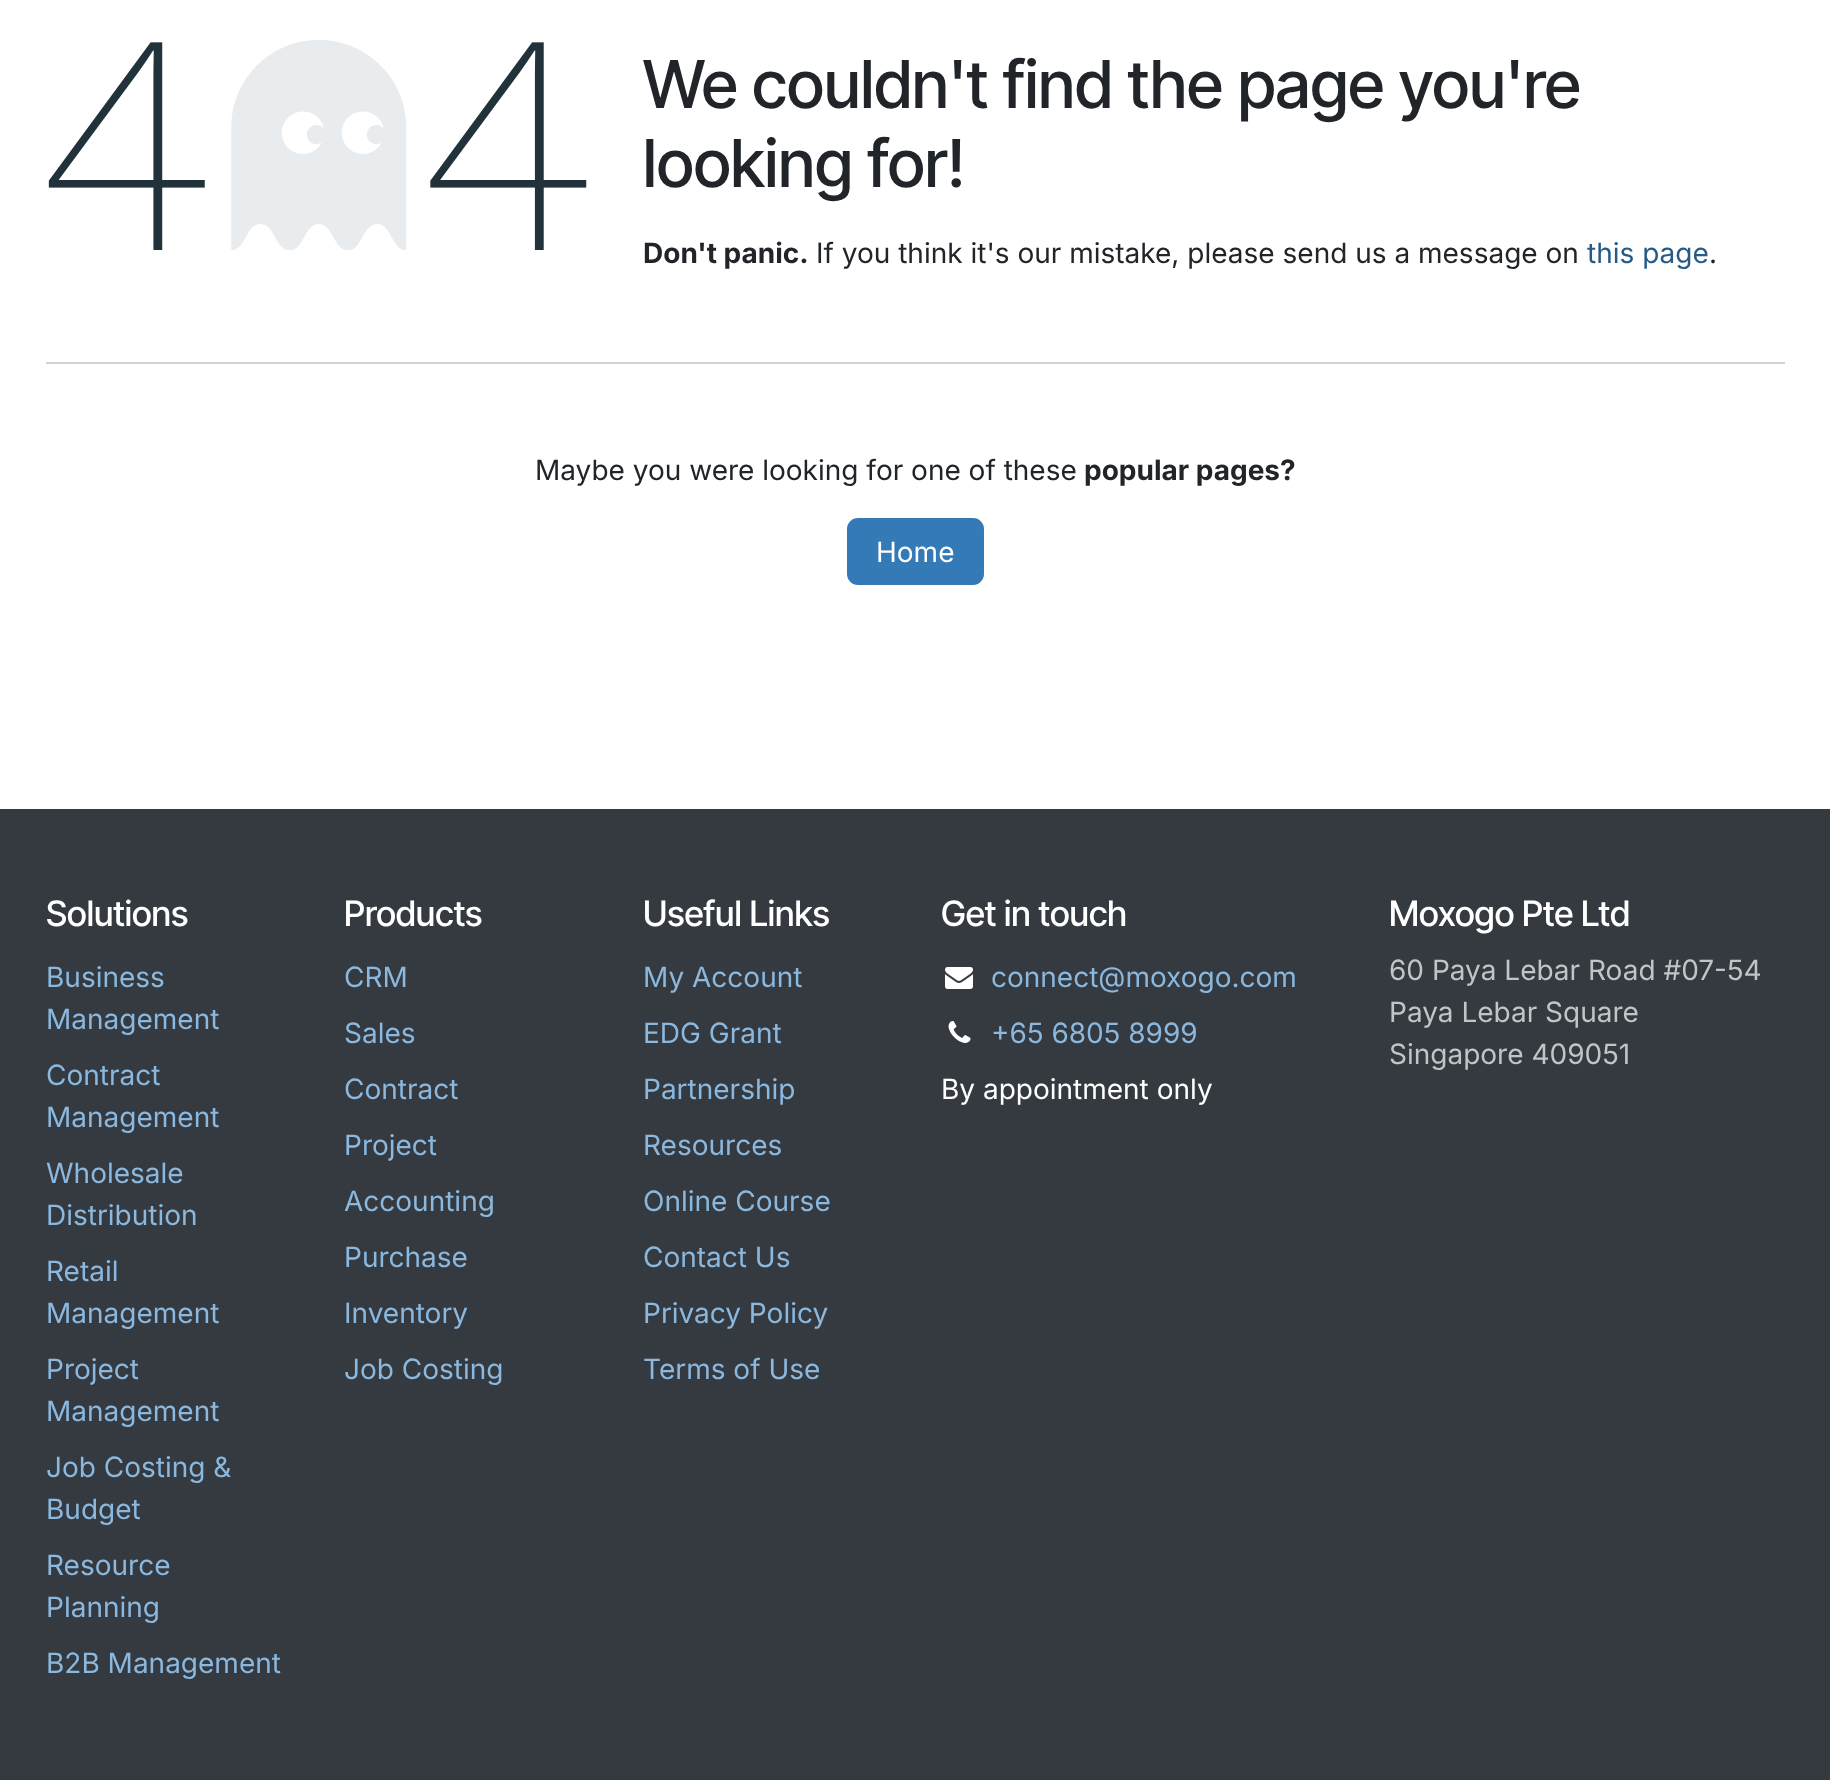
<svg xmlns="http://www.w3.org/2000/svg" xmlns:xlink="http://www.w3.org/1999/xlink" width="1830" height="1780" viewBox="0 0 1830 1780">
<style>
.cls-1{font:500 66px Inter Tight;fill:#212529}
.cls-2{font:bold 28px Inter;fill:#212529}
.cls-3{font:28px Inter;fill:#212529}
.cls-4{font:28px Inter;fill:#265a87}
.cls-5{font:28px Inter;fill:#ffffff}
.cls-6{font:500 35px Inter Tight;fill:#ffffff}
.cls-7{font:28px Inter;fill:#8bb8df}
.cls-8{font:28px Inter;fill:#c2c4c6}
</style>
<rect width="100%" height="100%" fill="#ffffff"/>
<image xlink:href="image0.png" x="48" y="40" width="539" height="210"/>
<rect fill="#ced4da" x="46" y="362" width="1739" height="2"/>
<rect fill="#337ab7" stroke="#337ab7" stroke-width="2" x="848" y="519" width="135" height="65" rx="10"/>
<rect fill="#343a40" x="0" y="809" width="1830" height="971"/>
<image xlink:href="image1.png" x="945" y="967" width="28" height="22"/>
<image xlink:href="image2.png" x="948" y="1021" width="23" height="22"/>
<text class="cls-1"><tspan x="643" y="108">We couldn't find the page you're</tspan><tspan x="643" y="187">looking for!</tspan></text>
<text class="cls-2" x="643" y="263">Don't panic.</text>
<text class="cls-3" x="816" y="263">If you think it's our mistake, please send us a message on</text>
<text class="cls-4" x="1587" y="263">this page</text>
<text class="cls-3" x="1709" y="263">.</text>
<text class="cls-3" x="535" y="480">Maybe you were looking for one of these</text>
<text class="cls-2" x="1084" y="480">popular pages?</text>
<text class="cls-5" x="876" y="562">Home</text>
<text class="cls-6" x="46" y="926">Solutions</text>
<text class="cls-7"><tspan x="46" y="987">Business</tspan><tspan x="46" y="1029">Management</tspan></text>
<text class="cls-7"><tspan x="46" y="1085">Contract</tspan><tspan x="46" y="1127">Management</tspan></text>
<text class="cls-7"><tspan x="46" y="1183">Wholesale</tspan><tspan x="46" y="1225">Distribution</tspan></text>
<text class="cls-7"><tspan x="46" y="1281">Retail</tspan><tspan x="46" y="1323">Management</tspan></text>
<text class="cls-7"><tspan x="46" y="1379">Project</tspan><tspan x="46" y="1421">Management</tspan></text>
<text class="cls-7"><tspan x="46" y="1477">Job Costing &amp;</tspan><tspan x="46" y="1519">Budget</tspan></text>
<text class="cls-7"><tspan x="46" y="1575">Resource</tspan><tspan x="46" y="1617">Planning</tspan></text>
<text class="cls-7" x="46" y="1673">B2B Management</text>
<text class="cls-6" x="344" y="926">Products</text>
<text class="cls-7" x="344" y="987">CRM</text>
<text class="cls-7" x="344" y="1043">Sales</text>
<text class="cls-7" x="344" y="1099">Contract</text>
<text class="cls-7" x="344" y="1155">Project</text>
<text class="cls-7" x="344" y="1211">Accounting</text>
<text class="cls-7" x="344" y="1267">Purchase</text>
<text class="cls-7" x="344" y="1323">Inventory</text>
<text class="cls-7" x="344" y="1379">Job Costing</text>
<text class="cls-6" x="643" y="926">Useful Links</text>
<text class="cls-7" x="643" y="987">My Account</text>
<text class="cls-7" x="643" y="1043">EDG Grant</text>
<text class="cls-7" x="643" y="1099">Partnership</text>
<text class="cls-7" x="643" y="1155">Resources</text>
<text class="cls-7" x="643" y="1211">Online Course</text>
<text class="cls-7" x="643" y="1267">Contact Us</text>
<text class="cls-7" x="643" y="1323">Privacy Policy</text>
<text class="cls-7" x="643" y="1379">Terms of Use</text>
<text class="cls-6" x="941" y="926">Get in touch</text>
<text class="cls-7" x="991" y="987">connect@moxogo.com</text>
<text class="cls-7" x="991" y="1043">+65 6805 8999</text>
<text class="cls-5" x="941" y="1099">By appointment only</text>
<text class="cls-6" x="1389" y="926">Moxogo Pte Ltd</text>
<text class="cls-8"><tspan x="1389" y="980">60 Paya Lebar Road #07-54</tspan><tspan x="1389" y="1022">Paya Lebar Square</tspan><tspan x="1389" y="1064">Singapore 409051</tspan></text>
</svg>
